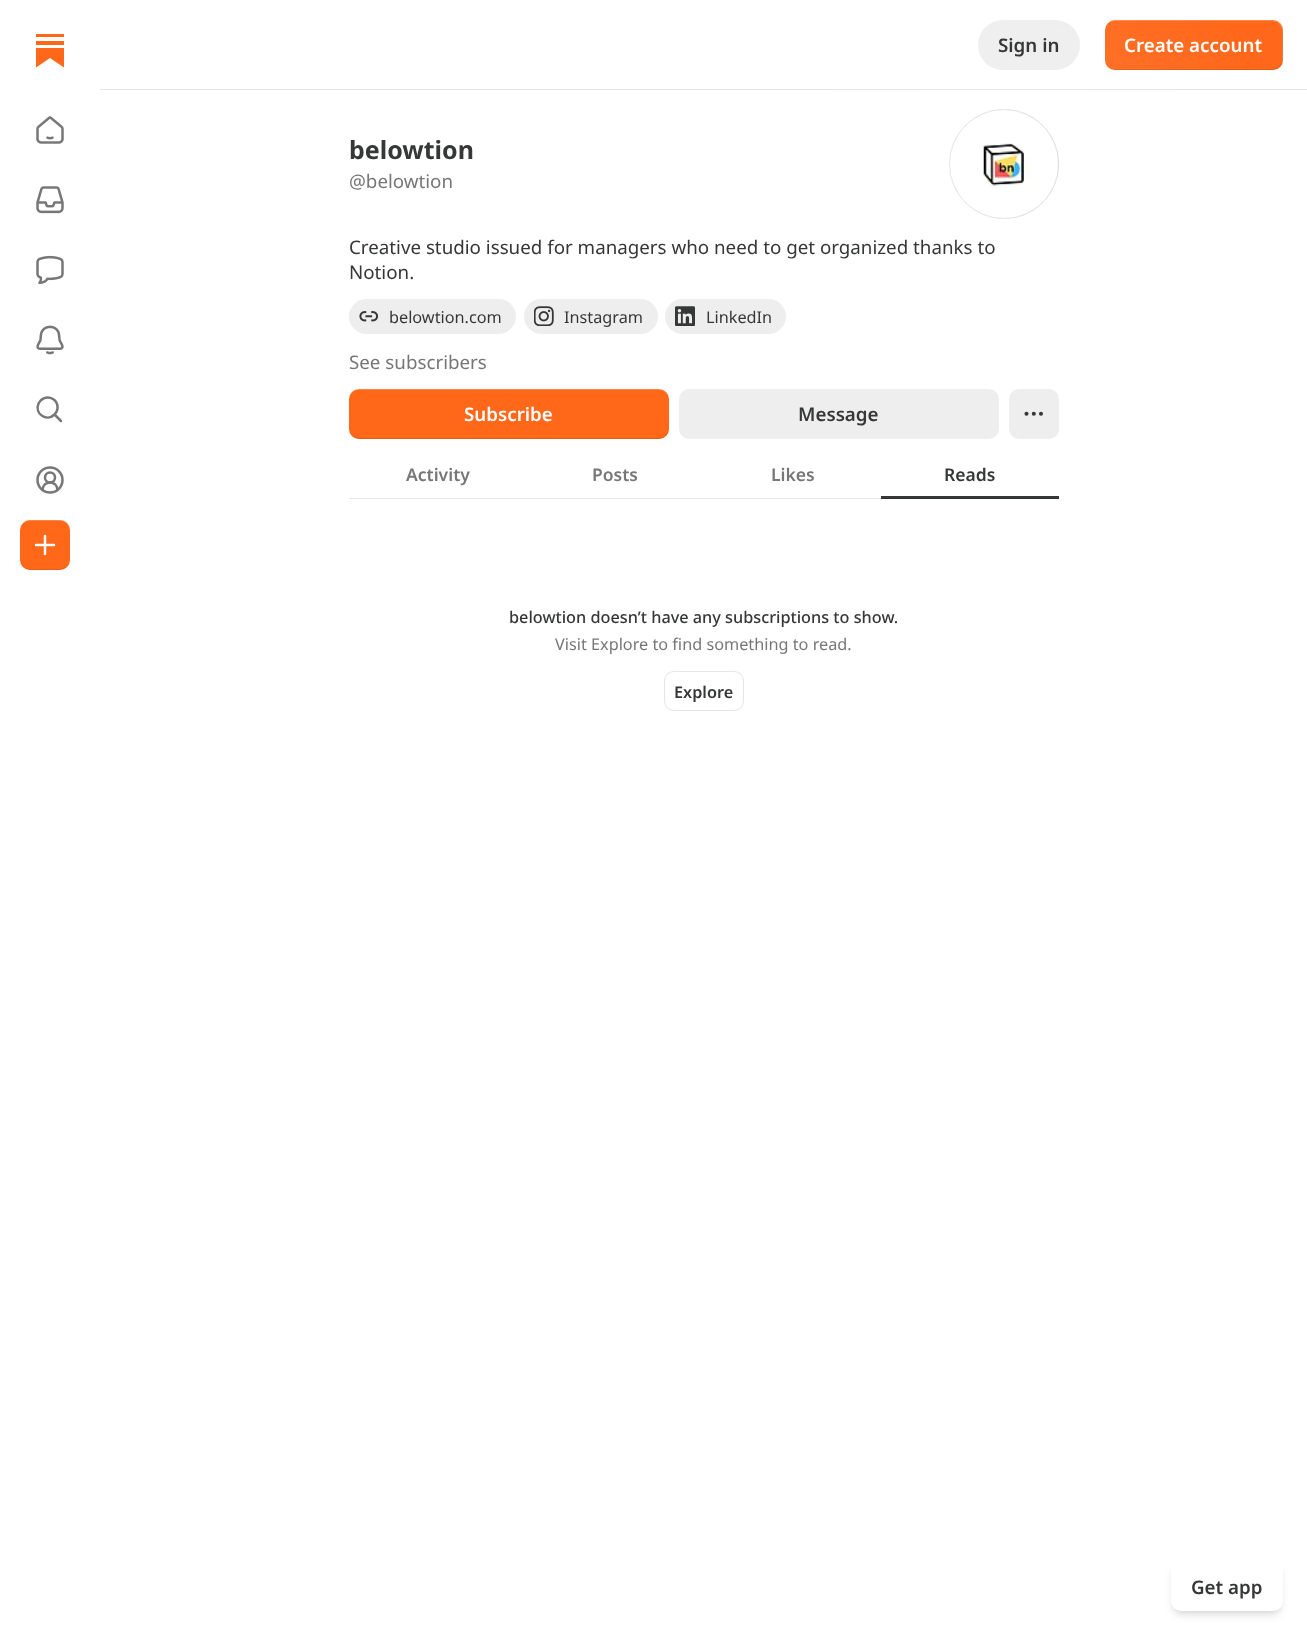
<svg xmlns="http://www.w3.org/2000/svg" xmlns:xlink="http://www.w3.org/1999/xlink" width="1307" height="1636" viewBox="0 0 1307 1636">
<style>
.cls-1{font:600 18.75px Noto Sans;fill:#363737}
.cls-2{font:600 18.75px Noto Sans;fill:#ffffff}
.cls-3{font:bold 25px Noto Sans;fill:#363737}
.cls-4{font:18.75px Noto Sans;fill:#777777}
.cls-5{font:18.75px Noto Sans;fill:#363737}
.cls-6{font:16.25px Noto Sans;fill:#363737}
.cls-7{font:600 17.5px Noto Sans;fill:#777777}
.cls-8{font:600 17.5px Noto Sans;fill:#363737}
.cls-9{font:500 16.25px Noto Sans;fill:#363737}
.cls-10{font:16.25px Noto Sans;fill:#777777}
.cls-11{font:600 16.25px Noto Sans;fill:#363737}
</style>
<defs>
<clipPath id="clip1"><path d="M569 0H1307V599H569ZM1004 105C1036.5 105 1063 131.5 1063 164C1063 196.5 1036.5 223 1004 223C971.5 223 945 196.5 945 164C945 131.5 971.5 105 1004 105Z" clip-rule="evenodd"/></clipPath>
</defs>
<rect width="100%" height="100%" fill="#ffffff"/>
<rect fill="#e6e6e6" x="349" y="498" width="532" height="1"/>
<rect fill="#ff6719" x="36" y="34" width="28" height="3"/>
<rect fill="#ff6719" x="36" y="41" width="28" height="4"/>
<path fill="#ff6719" d="M36 48V67.5L50 58L64 67.5V48Z"/>
<image xlink:href="image0.png" x="36" y="116" width="28" height="28"/>
<image xlink:href="image1.png" x="36" y="186" width="28" height="28"/>
<image xlink:href="image2.png" x="36" y="255" width="28" height="30"/>
<image xlink:href="image3.png" x="36" y="325" width="28" height="30"/>
<path fill="none" stroke="#777777" stroke-width="2.5" stroke-linecap="round" stroke-linejoin="round" d="M61 421L54.5 414.5M54.5 414.5C59 410 58.5 402.5 53 399C50.5 397.5 46.5 397 43.5 398.5C41 399.5 39.5 401 38.5 403.5C34 414 47 422 54.5 414.5Z"/>
<path fill="none" stroke="#777777" stroke-width="2.5" stroke-linecap="round" stroke-linejoin="round" d="M57.5 490C57.5 480 42.5 480 42.5 490"/>
<circle fill="none" stroke="#777777" stroke-width="2.5" cx="50" cy="477.5" r="5"/>
<circle fill="none" stroke="#777777" stroke-width="2.5" cx="50" cy="480" r="12.5"/>
<rect fill="#ff6719" x="20" y="520" width="50" height="50" rx="10"/>
<path fill="#000000" fill-opacity="0.1" d="M20 559C20 573 35 570 45 570C55 570 70 573 70 559C70 572 53 569 45 569C37 569 20 572 20 559Z"/>
<path fill="#ffffff" fill-opacity="0.2" d="M30 521H60C66 521 70 526 70 531C70 517 55 520 45 520C35 520 20 517 20 531C20 526 24 521 30 521Z"/>
<path fill="none" stroke="#ffffff" stroke-width="2.5" stroke-linecap="round" stroke-linejoin="round" d="M36 545H54M45 536V554"/>
<rect fill="#e6e6e6" x="100" y="89" width="1207" height="1"/>
<rect fill="#eeeeee" x="978" y="20" width="102" height="50" rx="25"/>
<rect fill="#ff6719" x="1105" y="20" width="178" height="50" rx="10"/>
<path fill="#000000" fill-opacity="0.1" d="M1105 59V60C1105 66 1109 70 1115 70H1273C1279 70 1283 66 1283 60V30C1283 28 1282 25 1281 24C1282 25 1282 27 1282 29V59C1282 64 1278 69 1272 69H1115C1109 69 1105 64 1105 59Z"/>
<path fill="#ffffff" fill-opacity="0.2" d="M1115 21H1272C1278 21 1282 26 1282 31V61C1282 63 1282 65 1281 66C1282 65 1283 62 1283 60V30C1283 24 1279 20 1273 20H1115C1109 20 1105 24 1105 30V31C1105 26 1109 21 1115 21Z"/>
<rect fill="#363737" x="881" y="496" width="178" height="2"/>
<rect fill="#313232" x="881" y="498" width="178" height="1"/>
<g clip-path="url(#clip1)">
<rect fill="#ffffff" filter="blur(125px)" x="945" y="105" width="118" height="118" rx="59"/>
</g>
<circle fill="none" stroke="#000000" stroke-opacity="0.1" cx="1004" cy="164" r="54.5"/>
<circle fill="#eeeeee" cx="1004" cy="164" r="55"/>
<image xlink:href="image4.png" x="949" y="109" width="110" height="110"/>
<circle fill="none" stroke="#000000" stroke-opacity="0.1" cx="1004" cy="164" r="54.5"/>
<rect fill="#eeeeee" x="349" y="299" width="167" height="35" rx="17.5"/>
<image xlink:href="image5.png" x="359" y="311" width="20" height="11"/>
<rect fill="#eeeeee" x="524" y="299" width="134" height="35" rx="17.5"/>
<image xlink:href="image6.png" x="534" y="306" width="20" height="20"/>
<rect fill="#eeeeee" x="665" y="299" width="121" height="35" rx="17.5"/>
<image xlink:href="image7.png" x="675" y="306" width="20" height="20"/>
<rect fill="#ff6719" x="349" y="389" width="320" height="50" rx="10"/>
<path fill="#000000" fill-opacity="0.1" d="M349 428C349 433 352 438 357 439H661C666 438 669 433 669 428C669 433 664 438 659 438H359C353 438 349 433 349 428Z"/>
<path fill="#ffffff" fill-opacity="0.2" d="M359 390H659C664 390 669 394 669 400C669 395 666 390 661 389H357C352 390 349 395 349 400C349 394 353 390 359 390Z"/>
<rect fill="#eeeeee" x="679" y="389" width="320" height="50" rx="10"/>
<rect fill="#eeeeee" x="1009" y="389" width="50" height="50" rx="10"/>
<circle fill="none" stroke="#363737" stroke-width="2.1" cx="1033.8" cy="413.8" r="1"/>
<circle fill="none" stroke="#363737" stroke-width="2.1" cx="1041" cy="413.8" r="1"/>
<circle fill="none" stroke="#363737" stroke-width="2.1" cx="1026.5" cy="413.8" r="1"/>
<rect fill="none" stroke="#e6e6e6" x="664.5" y="671.5" width="79" height="39" rx="9.5"/>
<rect fill="#000000" fill-opacity="0.06" filter="blur(2.5px)" x="1173" y="1565" width="108" height="48" rx="9"/>
<rect fill="#000000" fill-opacity="0.1" filter="blur(4px)" x="1173" y="1568" width="108" height="47" rx="9"/>
<rect fill="#ffffff" x="1171" y="1561" width="112" height="50" rx="10"/>
<text class="cls-1" x="998" y="52">Sign in</text>
<text class="cls-2" x="1124" y="52">Create account</text>
<text class="cls-3" x="349" y="159">belowtion</text>
<text class="cls-4" x="349" y="188">@belowtion</text>
<text class="cls-5"><tspan x="349" y="254">Creative studio issued for managers who need to get organized thanks to</tspan><tspan x="349" y="279">Notion.</tspan></text>
<text class="cls-6" x="389" y="323">belowtion.com</text>
<text class="cls-6" x="564" y="323">Instagram</text>
<text class="cls-6" x="706" y="323">LinkedIn</text>
<text class="cls-4" x="349" y="369">See subscribers</text>
<text class="cls-2" x="464" y="421">Subscribe</text>
<text class="cls-1" x="798" y="421">Message</text>
<text class="cls-7" x="406" y="481">Activity</text>
<text class="cls-7" x="592" y="481">Posts</text>
<text class="cls-7" x="771" y="481">Likes</text>
<text class="cls-8" x="944" y="481">Reads</text>
<text class="cls-9" x="509" y="623">belowtion doesn’t have any subscriptions to show.</text>
<text class="cls-10" x="555" y="650">Visit Explore to find something to read.</text>
<text class="cls-11" x="674" y="698">Explore</text>
<text class="cls-1" x="1191" y="1594">Get app</text>
</svg>
